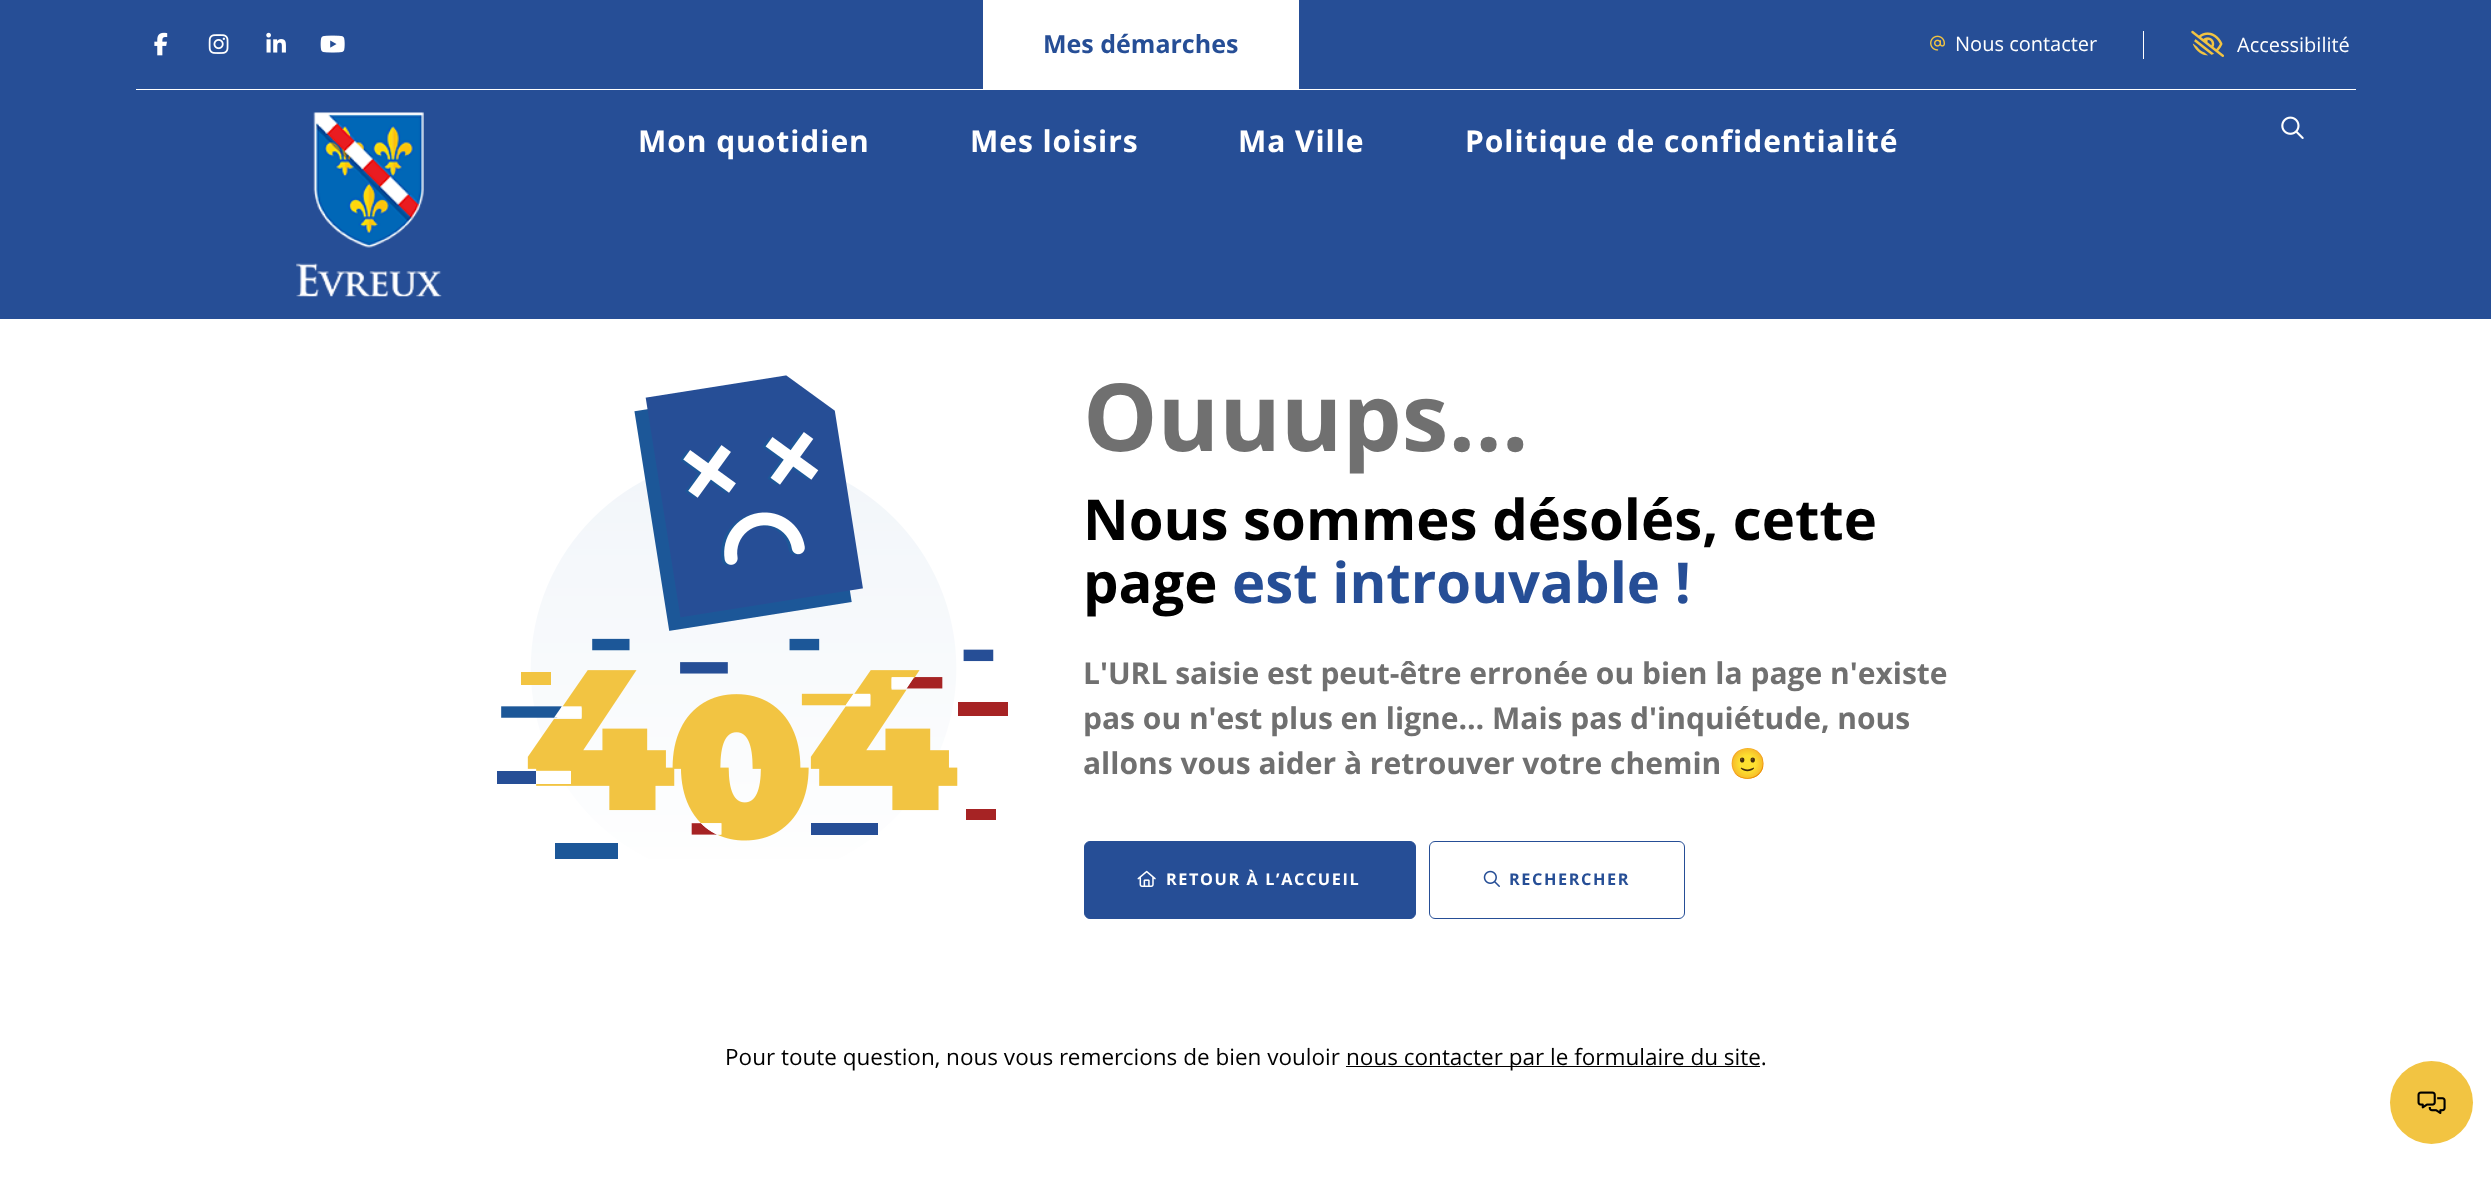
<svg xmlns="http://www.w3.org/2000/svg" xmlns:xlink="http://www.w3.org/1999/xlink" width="2491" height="1193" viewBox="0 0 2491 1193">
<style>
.cls-1{font:bold 25px Open Sans;fill:#264e96}
.cls-2{font:20px Open Sans;fill:#ffffff}
.cls-3{font:bold 30px Open Sans;letter-spacing:0.95px;fill:#ffffff}
.cls-4{font:bold 93.75px Open Sans;fill:#707070}
.cls-5{font:bold 56.25px Open Sans;fill:#000000}
.cls-6{font:bold 56.25px Open Sans;fill:#264e96}
.cls-7{font:bold 30px Open Sans;fill:#707070}
.cls-8{font:bold 30px Noto Color Emoji;fill:#707070}
.cls-9{font:bold 16.25px Open Sans;letter-spacing:1.6px;fill:#ffffff}
.cls-10{font:bold 16.25px Open Sans;letter-spacing:1.6px;fill:#264e96}
.cls-11{font:22.5px Open Sans;fill:#000000}
</style>
<rect width="100%" height="100%" fill="#ffffff"/>
<rect fill="#264e96" x="0" y="0" width="2491" height="319"/>
<rect fill="#ffffff" x="136" y="89" width="2220" height="1"/>
<image xlink:href="image0.png" x="154" y="32" width="14" height="24"/>
<image xlink:href="image1.png" x="208" y="34" width="21" height="20"/>
<image xlink:href="image2.png" x="266" y="32" width="20" height="21"/>
<image xlink:href="image3.png" x="320" y="35" width="25" height="18"/>
<rect fill="#ffffff" x="983" y="0" width="316" height="89"/>
<image xlink:href="image4.png" x="1930" y="35" width="15" height="16"/>
<rect fill="#ffffff" x="2143" y="31" width="1" height="28"/>
<image xlink:href="image5.png" x="2191" y="30" width="33" height="27"/>
<image xlink:href="image6.png" x="296" y="112" width="146" height="185"/>
<image xlink:href="image7.png" x="2281" y="116" width="23" height="23"/>
<image xlink:href="image8.png" x="497" y="375" width="511" height="484"/>
<rect fill="#264e96" stroke="#264e96" x="1084.5" y="841.5" width="331" height="77" rx="5.5"/>
<image xlink:href="image9.png" x="1137" y="870" width="19" height="17"/>
<rect fill="none" stroke="#264e96" x="1429.5" y="841.5" width="255" height="77" rx="5.5"/>
<image xlink:href="image10.png" x="1483" y="870" width="17" height="17"/>
<rect fill="#000000" x="1346" y="1066" width="414" height="1"/>
<circle fill="#f2c442" cx="2431.5" cy="1102.5" r="41.5"/>
<image xlink:href="image11.png" x="2417" y="1091" width="29" height="23"/>
<text class="cls-1" x="1043" y="53">Mes démarches</text>
<text class="cls-2" x="1955" y="51">Nous contacter</text>
<text class="cls-2" x="2237" y="52">Accessibilité</text>
<text class="cls-3" x="638" y="152">Mon quotidien</text>
<text class="cls-3" x="970" y="152">Mes loisirs</text>
<text class="cls-3" x="1238" y="152">Ma Ville</text>
<text class="cls-3" x="1465" y="152">Politique de confidentialité</text>
<text class="cls-4" x="1083" y="451">Ouuups…</text>
<text class="cls-5"><tspan x="1083" y="540">Nous sommes désolés, cette</tspan><tspan x="1083" y="603">page</tspan></text>
<text class="cls-6" x="1232" y="603">est introuvable !</text>
<text class="cls-7"><tspan x="1083" y="684">L'URL saisie est peut-être erronée ou bien la page n'existe</tspan><tspan x="1083" y="729">pas ou n'est plus en ligne… Mais pas d'inquiétude, nous</tspan><tspan x="1083" y="774">allons vous aider à retrouver votre chemin</tspan></text>
<text class="cls-8" x="1729" y="774">🙂</text>
<text class="cls-9" x="1166" y="885">RETOUR À L’ACCUEIL</text>
<text class="cls-10" x="1509" y="885">RECHERCHER</text>
<text class="cls-11" x="725" y="1065">Pour toute question, nous vous remercions de bien vouloir</text>
<text class="cls-11" x="1346" y="1065">nous contacter par le formulaire du site.</text>
</svg>
